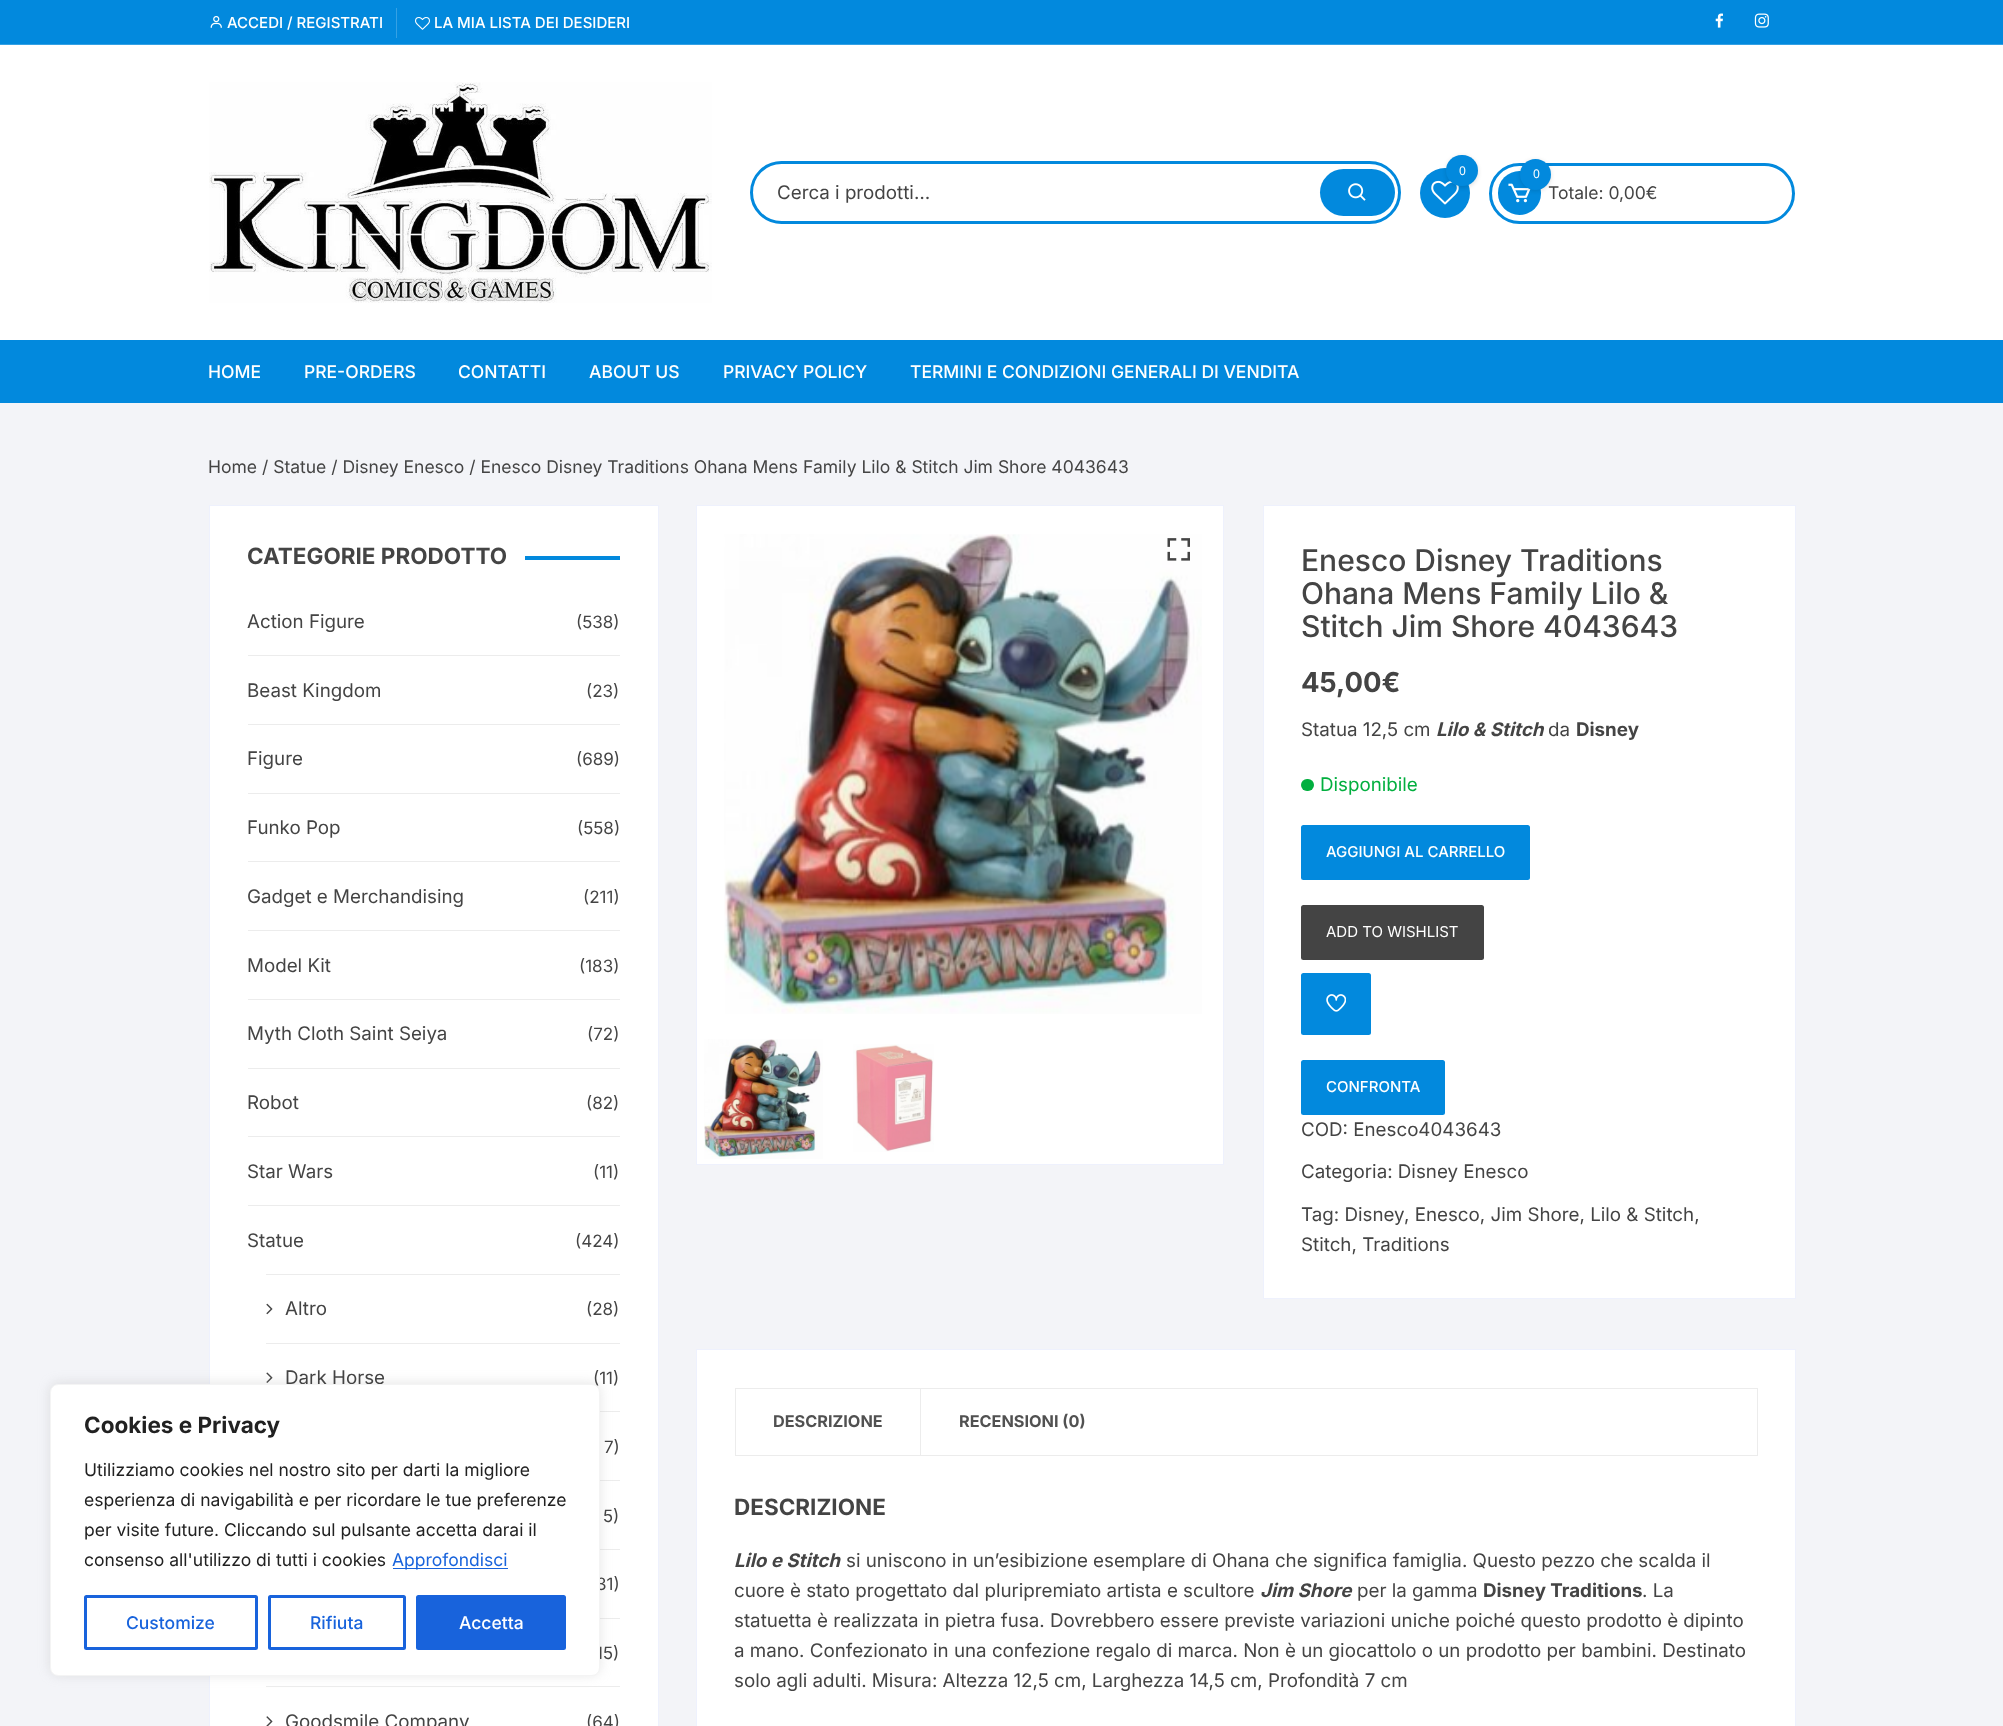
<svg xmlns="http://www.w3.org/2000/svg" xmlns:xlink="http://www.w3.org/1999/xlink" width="2003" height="1726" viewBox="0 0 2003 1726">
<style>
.cls-1{font:500 15px Inter;fill:#ffffff}
.cls-2{font:18.75px Inter;fill:#444444}
.cls-3{font:12px Noto Sans;fill:#ffffff}
.cls-4{font:17.5px Inter;fill:#444444}
.cls-5{font:500 17.5px Inter;fill:#ffffff}
.cls-6{font:bold 22.5px Inter;fill:#444444}
.cls-7{font:17px Inter;fill:#444444}
.cls-8{font:500 30px Inter;fill:#444444}
.cls-9{font:bold 27.5px Inter;fill:#444444}
.cls-10{font:italic bold 18.75px Inter;fill:#444444}
.cls-11{font:bold 18.75px Inter;fill:#444444}
.cls-12{font:18.75px Inter;fill:#02af3f}
.cls-13{font:15px Inter;fill:#ffffff}
.cls-14{font:bold 16.25px Inter;fill:#515151}
.cls-15{font:bold 22.5px Inter;fill:#212121}
.cls-16{font:17.5px Inter;fill:#212121}
.cls-17{font:17.5px Inter;fill:#1863dc}
.cls-18{font:500 17.5px Inter;fill:#1863dc}
</style>
<rect width="100%" height="100%" fill="#f3f4f8"/>
<rect fill="#ffffff" x="0" y="45" width="2003" height="295"/>
<rect fill="#0289dd" x="0" y="0" width="2003" height="44"/>
<rect fill="#35a1e4" x="0" y="44" width="2003" height="1"/>
<rect fill="#35a1e4" x="396" y="8" width="1" height="30"/>
<image xlink:href="image0.png" x="210" y="15" width="12" height="13"/>
<image xlink:href="image1.png" x="415" y="17" width="15" height="13"/>
<image xlink:href="image2.png" x="1715" y="13" width="8" height="15"/>
<image xlink:href="image3.png" x="1754" y="13" width="15" height="15"/>
<image xlink:href="image4.png" x="209" y="82" width="503" height="221"/>
<rect fill="none" stroke="#0289dd" stroke-width="3" x="751.5" y="162.5" width="648" height="60" rx="30"/>
<rect fill="#0289dd" x="1320" y="169" width="75" height="47" rx="23.5"/>
<image xlink:href="image5.png" x="1348" y="183" width="18" height="18"/>
<circle fill="#0289dd" cx="1445" cy="193" r="25"/>
<image xlink:href="image6.png" x="1431" y="180" width="28" height="25"/>
<rect fill="#000000" fill-opacity="0.13" filter="blur(2px)" x="1446" y="156" width="32" height="32" rx="16"/>
<rect fill="#0289dd" x="1446" y="155" width="32" height="31" rx="15.5"/>
<rect fill="none" stroke="#0289dd" stroke-width="3" x="1490.5" y="164.5" width="303" height="58" rx="29"/>
<rect fill="#0289dd" x="1498" y="171" width="43" height="44" rx="21.5"/>
<image xlink:href="image7.png" x="1508" y="183" width="23" height="20"/>
<rect fill="#000000" fill-opacity="0.13" filter="blur(2px)" x="1520" y="160" width="31" height="31" rx="15.5"/>
<rect fill="#0289dd" x="0" y="340" width="2003" height="63"/>
<rect fill="#ffffff" stroke="#eef1fd" x="209.5" y="505.5" width="449" height="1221"/>
<rect fill="#0289dd" x="525" y="556" width="95" height="4"/>
<rect fill="#ececec" x="248" y="655" width="372" height="1"/>
<rect fill="#ececec" x="248" y="724" width="372" height="1"/>
<rect fill="#ececec" x="248" y="793" width="372" height="1"/>
<rect fill="#ececec" x="248" y="861" width="372" height="1"/>
<rect fill="#ececec" x="248" y="930" width="372" height="1"/>
<rect fill="#ececec" x="248" y="999" width="372" height="1"/>
<rect fill="#ececec" x="248" y="1068" width="372" height="1"/>
<rect fill="#ececec" x="248" y="1136" width="372" height="1"/>
<rect fill="#ececec" x="248" y="1205" width="372" height="1"/>
<rect fill="#ececec" x="266" y="1274" width="354" height="1"/>
<rect fill="#ececec" x="266" y="1343" width="354" height="1"/>
<image xlink:href="image8.png" x="266" y="1303" width="7" height="12"/>
<rect fill="#ececec" x="600" y="1411" width="20" height="1"/>
<image xlink:href="image9.png" x="266" y="1372" width="7" height="11"/>
<rect fill="#ececec" x="600" y="1480" width="20" height="1"/>
<rect fill="#ececec" x="600" y="1549" width="20" height="1"/>
<rect fill="#ececec" x="600" y="1618" width="20" height="1"/>
<rect fill="#ececec" x="266" y="1686" width="354" height="1"/>
<image xlink:href="image10.png" x="266" y="1716" width="7" height="10"/>
<rect fill="#ffffff" stroke="#eef1fd" x="696.5" y="505.5" width="527" height="659"/>
<image xlink:href="image11.png" x="724" y="534" width="478" height="480"/>
<image xlink:href="image12.png" x="1167" y="538" width="23" height="23"/>
<image xlink:href="image13.png" x="704" y="1039" width="119" height="120"/>
<image xlink:href="image14.png" x="853" y="1044" width="81" height="108"/>
<rect fill="#ffffff" stroke="#eef1fd" x="1263.5" y="505.5" width="532" height="793"/>
<rect fill="#02af3f" x="1301" y="779" width="13" height="12" rx="6"/>
<rect fill="#0289dd" x="1301" y="825" width="229" height="55" rx="2.5"/>
<rect fill="#444444" x="1301" y="905" width="183" height="55" rx="2.5"/>
<rect fill="#0289dd" x="1301" y="973" width="70" height="62" rx="2.5"/>
<image xlink:href="image15.png" x="1326" y="994" width="20" height="18"/>
<rect fill="#0289dd" x="1301" y="1060" width="144" height="55" rx="2.5"/>
<rect fill="#ffffff" stroke="#eef1fd" x="696.5" y="1349.5" width="1099" height="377"/>
<rect fill="none" stroke="#ececec" x="735.5" y="1388.5" width="1022" height="67"/>
<rect fill="#ececec" x="920" y="1389" width="1" height="66"/>
<rect fill="#acabab" fill-opacity="0.3" filter="blur(6px)" x="50" y="1383" width="550" height="292" rx="8"/>
<text class="cls-1" x="227" y="28">ACCEDI / REGISTRATI</text>
<text class="cls-1" x="434" y="28">LA MIA LISTA DEI DESIDERI</text>
<text class="cls-2" x="777" y="199">Cerca i prodotti…</text>
<text class="cls-3" x="1459" y="175">0</text>
<text class="cls-4" x="1548" y="199">Totale: 0,00€</text>
<circle fill="#0289dd" cx="1535.5" cy="174.5" r="15.5"/>
<text class="cls-3" x="1533" y="178">0</text>
<text class="cls-5" x="208" y="378">HOME</text>
<text class="cls-5" x="304" y="378">PRE-ORDERS</text>
<text class="cls-5" x="458" y="378">CONTATTI</text>
<text class="cls-5" x="589" y="378">ABOUT US</text>
<text class="cls-5" x="723" y="378">PRIVACY POLICY</text>
<text class="cls-5" x="910" y="378">TERMINI E CONDIZIONI GENERALI DI VENDITA</text>
<text class="cls-4" x="208" y="473">Home / Statue / Disney Enesco / Enesco Disney Traditions Ohana Mens Family Lilo &amp; Stitch Jim Shore 4043643</text>
<text class="cls-6" x="247" y="564">CATEGORIE PRODOTTO</text>
<text class="cls-2" x="247" y="628">Action Figure</text>
<text class="cls-7" x="576" y="628">(538)</text>
<text class="cls-2" x="247" y="697">Beast Kingdom</text>
<text class="cls-7" x="586" y="697">(23)</text>
<text class="cls-2" x="247" y="765">Figure</text>
<text class="cls-7" x="576" y="765">(689)</text>
<text class="cls-2" x="247" y="834">Funko Pop</text>
<text class="cls-7" x="577" y="834">(558)</text>
<text class="cls-2" x="247" y="903">Gadget e Merchandising</text>
<text class="cls-7" x="583" y="903">(211)</text>
<text class="cls-2" x="247" y="972">Model Kit</text>
<text class="cls-7" x="579" y="972">(183)</text>
<text class="cls-2" x="247" y="1040">Myth Cloth Saint Seiya</text>
<text class="cls-7" x="587" y="1040">(72)</text>
<text class="cls-2" x="247" y="1109">Robot</text>
<text class="cls-7" x="586" y="1109">(82)</text>
<text class="cls-2" x="247" y="1178">Star Wars</text>
<text class="cls-7" x="593" y="1178">(11)</text>
<text class="cls-2" x="247" y="1247">Statue</text>
<text class="cls-7" x="575" y="1247">(424)</text>
<text class="cls-2" x="285" y="1315">Altro</text>
<text class="cls-7" x="586" y="1315">(28)</text>
<text class="cls-2" x="285" y="1384">Dark Horse</text>
<text class="cls-7" x="593" y="1384">(11)</text>
<text class="cls-7" x="604" y="1453">7)</text>
<text class="cls-7" x="603" y="1522">5)</text>
<text class="cls-7" x="596" y="1590">31)</text>
<text class="cls-7" x="596" y="1659">15)</text>
<text class="cls-2" x="285" y="1728">Goodsmile Company</text>
<text class="cls-7" x="586" y="1728">(64)</text>
<text class="cls-8"><tspan x="1301" y="571">Enesco Disney Traditions</tspan><tspan x="1301" y="604">Ohana Mens Family Lilo &amp;</tspan><tspan x="1301" y="637">Stitch Jim Shore 4043643</tspan></text>
<text class="cls-9" x="1301" y="692">45,00€</text>
<text class="cls-2" x="1301" y="736">Statua 12,5 cm</text>
<text class="cls-10" x="1436" y="736">Lilo &amp; Stitch</text>
<text class="cls-2" x="1548" y="736">da</text>
<text class="cls-11" x="1576" y="736">Disney</text>
<text class="cls-12" x="1320" y="791">Disponibile</text>
<text class="cls-1" x="1326" y="857">AGGIUNGI AL CARRELLO</text>
<text class="cls-13" x="1326" y="937">ADD TO WISHLIST</text>
<text class="cls-1" x="1326" y="1092">CONFRONTA</text>
<text class="cls-2" x="1301" y="1136">COD: Enesco4043643</text>
<text class="cls-2" x="1301" y="1178">Categoria: Disney Enesco</text>
<text class="cls-2" x="1301" y="1221">Tag: Disney</text>
<text class="cls-2" x="1404" y="1221">, Enesco, Jim Shore, Lilo &amp; Stitch,</text>
<text class="cls-2" x="1301" y="1251">Stitch, Traditions</text>
<text class="cls-14" x="773" y="1427">DESCRIZIONE</text>
<text class="cls-14" x="959" y="1427">RECENSIONI (0)</text>
<text class="cls-6" x="734" y="1515">DESCRIZIONE</text>
<text class="cls-10" x="734" y="1567">Lilo e Stitch</text>
<text class="cls-2" x="846" y="1567">si uniscono in un’esibizione esemplare di Ohana che significa famiglia. Questo pezzo che scalda il</text>
<text class="cls-2" x="734" y="1597">cuore è stato progettato dal pluripremiato artista e scultore</text>
<text class="cls-10" x="1260" y="1597">Jim Shore</text>
<text class="cls-2" x="1357" y="1597">per la gamma</text>
<text class="cls-11" x="1483" y="1597">Disney Traditions</text>
<text class="cls-2" x="1642" y="1597">. La</text>
<text class="cls-2"><tspan x="734" y="1627">statuetta è realizzata in pietra fusa. Dovrebbero essere previste variazioni uniche poiché questo prodotto è dipinto</tspan><tspan x="734" y="1657">a mano. Confezionato in una confezione regalo di marca. Non è un giocattolo o un prodotto per bambini. Destinato</tspan><tspan x="734" y="1687">solo agli adulti. Misura: Altezza 12,5 cm, Larghezza 14,5 cm, Profondità 7 cm</tspan></text>
<rect fill="#ffffff" stroke="#f4f4f4" x="50.5" y="1384.5" width="549" height="291" rx="7.5"/>
<text class="cls-15" x="84" y="1433">Cookies e Privacy</text>
<text class="cls-16"><tspan x="84" y="1476">Utilizziamo cookies nel nostro sito per darti la migliore</tspan><tspan x="84" y="1506">esperienza di navigabilità e per ricordare le tue preferenze</tspan><tspan x="84" y="1536">per visite future. Cliccando sul pulsante accetta darai il</tspan><tspan x="84" y="1566">consenso all'utilizzo di tutti i cookies</tspan></text>
<rect fill="#1863dc" x="393" y="1568" width="115" height="1"/>
<text class="cls-17" x="392" y="1566">Approfondisci</text>
<rect fill="none" stroke="#1863dc" stroke-width="3" x="85.5" y="1596.5" width="171" height="52" rx="1"/>
<text class="cls-18" x="126" y="1629">Customize</text>
<rect fill="none" stroke="#1863dc" stroke-width="3" x="269.5" y="1596.5" width="135" height="52" rx="1"/>
<text class="cls-18" x="310" y="1629">Rifiuta</text>
<rect fill="#1863dc" stroke="#1863dc" stroke-width="3" x="417.5" y="1596.5" width="147" height="52" rx="1"/>
<text class="cls-5" x="459" y="1629">Accetta</text>
</svg>
